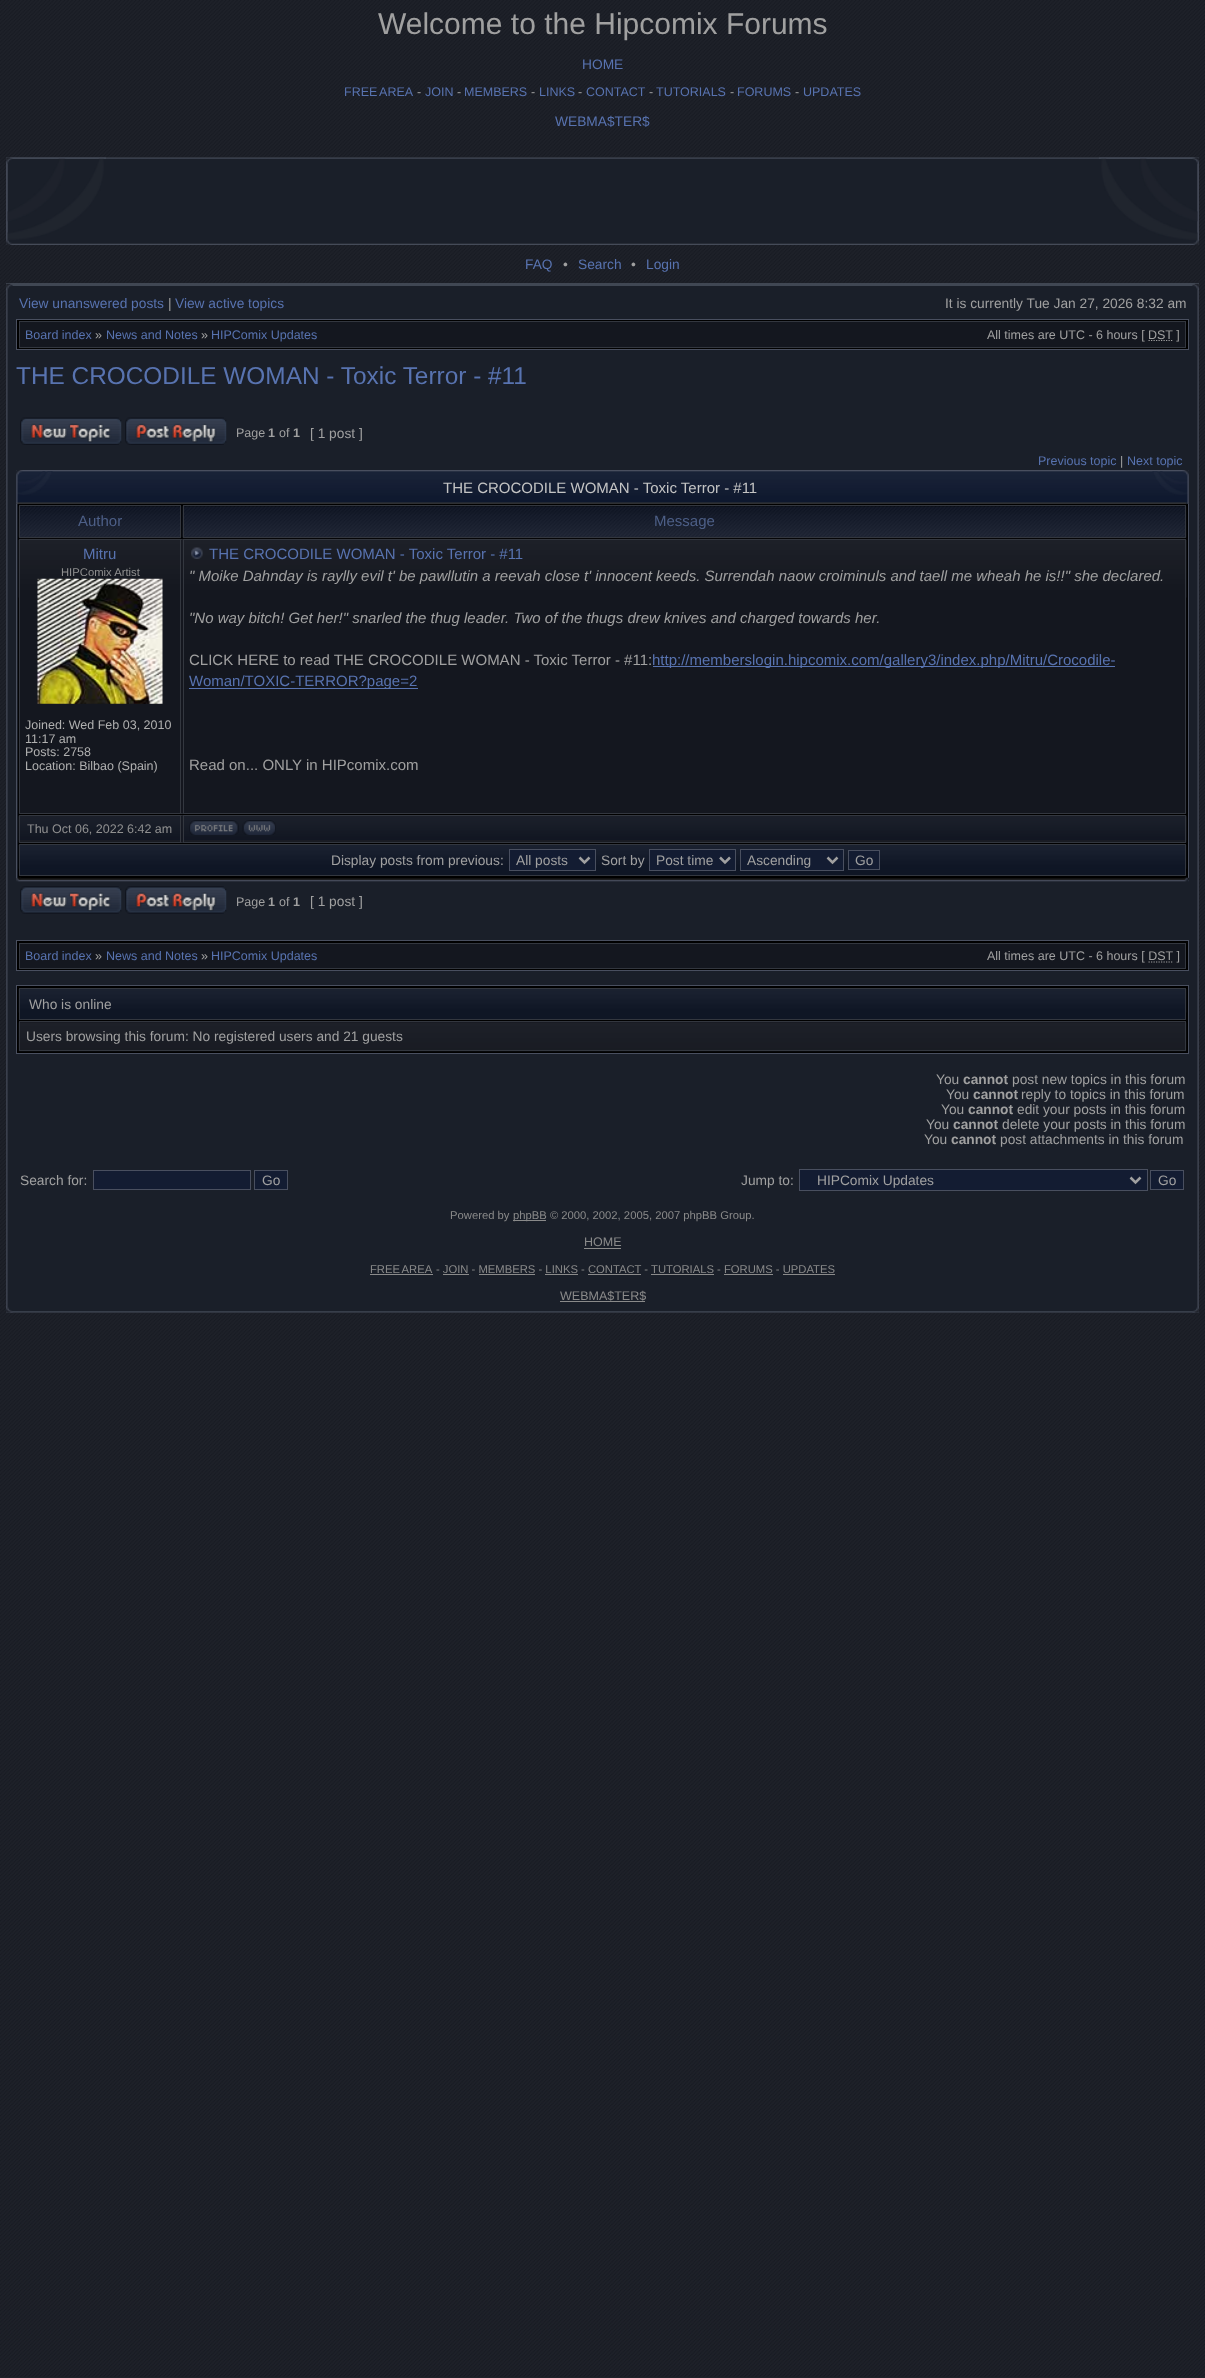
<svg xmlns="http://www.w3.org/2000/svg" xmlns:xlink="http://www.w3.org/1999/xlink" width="1205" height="2378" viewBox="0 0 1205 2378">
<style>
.cls-1{font:30px Liberation Sans;fill:#a0a0a0}
.cls-2{font:13.75px Liberation Sans;fill:#5873b0}
.cls-3{font:12.5px Liberation Sans;fill:#5873b0}
.cls-4{font:12.5px Liberation Sans;fill:#a0a0a0}
.cls-5{font:13.75px Liberation Sans;fill:#a0a0a0}
.cls-6{font:24.4px Liberation Sans;fill:#5873b0}
.cls-7{font:bold 12.5px Liberation Sans;fill:#a0a0a0}
.cls-8{font:15px Liberation Sans;fill:#c4c4c4}
.cls-9{font:15px Liberation Sans;fill:#4d5f87}
.cls-10{font:15px Liberation Sans;fill:#5873b0}
.cls-11{font:11.25px Liberation Sans;fill:#909090}
.cls-12{font:12.5px Liberation Sans;fill:#b0b0b0}
.cls-13{font:italic 15px Liberation Sans;fill:#a0a0a0}
.cls-14{font:15px Liberation Sans;fill:#a0a0a0}
.cls-15{font:12.5px Liberation Sans;fill:#909090}
.cls-16{font:bold 13.75px Liberation Sans;fill:#a0a0a0}
.cls-17{font:11.25px Liberation Sans;fill:#8a8a8a}
.cls-18{font:12.5px Liberation Sans;fill:#8a8a8a}
</style>
<rect width="100%" height="100%" fill="#1f222a"/>
<image xlink:href="image0.png" x="0" y="0" width="1205" height="2377"/>
<rect fill="#1a1f29" x="6" y="158" width="1193" height="87"/>
<image xlink:href="image1.png" x="6" y="157" width="1193" height="2"/>
<image xlink:href="image2.png" x="6" y="157" width="2" height="88"/>
<image xlink:href="image3.png" x="1197" y="157" width="2" height="88"/>
<image xlink:href="image4.png" x="6" y="243" width="1193" height="2"/>
<image xlink:href="image5.png" x="6" y="240" width="6" height="5"/>
<image xlink:href="image6.png" x="6" y="157" width="100" height="83"/>
<image xlink:href="image7.png" x="1193" y="240" width="6" height="5"/>
<image xlink:href="image8.png" x="1099" y="157" width="100" height="83"/>
<rect fill="#1a1f29" x="6" y="284" width="1193" height="1029"/>
<rect fill="#454b58" fill-opacity="0.9" x="6" y="283" width="1193" height="3"/>
<image xlink:href="image9.png" x="6" y="286" width="2" height="1027"/>
<image xlink:href="image10.png" x="1197" y="286" width="2" height="1027"/>
<image xlink:href="image11.png" x="6" y="1311" width="1193" height="2"/>
<image xlink:href="image12.png" x="6" y="1306" width="7" height="7"/>
<image xlink:href="image13.png" x="6" y="283" width="7" height="7"/>
<rect fill="#000000" stroke="#494f5f" x="16.5" y="319.5" width="1172" height="30"/>
<rect fill="#14171f" stroke="#33373f" x="19.5" y="321.5" width="1166" height="26"/>
<path fill="none" stroke="#a0a0a0" stroke-width="1.2" stroke-dasharray="1.25 1.25" d="M1148.5 340.5H1173"/>
<image xlink:href="image14.png" x="20" y="417" width="102" height="28"/>
<image xlink:href="image15.png" x="125" y="417" width="102" height="28"/>
<image xlink:href="image16.png" x="16" y="877" width="1173" height="5"/>
<image xlink:href="image17.png" x="16" y="470" width="1173" height="34"/>
<image xlink:href="image18.png" x="16" y="470" width="37" height="34"/>
<image xlink:href="image19.png" x="1152" y="470" width="37" height="34"/>
<rect fill="#000000" x="18" y="504" width="1170" height="374"/>
<rect fill="#494f5f" x="1188" y="504" width="1" height="374"/>
<rect fill="#494f5f" x="16" y="504" width="1" height="374"/>
<image xlink:href="image20.png" x="18" y="506" width="164" height="32"/>
<rect fill="none" stroke="#33373f" x="19.5" y="505.5" width="161" height="32"/>
<image xlink:href="image21.png" x="182" y="506" width="1005" height="32"/>
<rect fill="none" stroke="#33373f" x="183.5" y="505.5" width="1002" height="32"/>
<rect fill="#14171f" x="181" y="540" width="2" height="273"/>
<rect fill="none" stroke="#33373f" x="19.5" y="539.5" width="1166" height="274"/>
<image xlink:href="image22.png" x="18" y="538" width="164" height="276"/>
<rect fill="none" stroke="#33373f" x="19.5" y="539.5" width="161" height="274"/>
<image xlink:href="image23.png" x="37" y="578" width="126" height="126"/>
<image xlink:href="image24.png" x="182" y="538" width="1005" height="276"/>
<rect fill="none" stroke="#33373f" x="183.5" y="539.5" width="1002" height="274"/>
<image xlink:href="image25.png" x="191" y="547" width="12" height="12"/>
<rect fill="#5873b0" x="653" y="666" width="462" height="1"/>
<rect fill="#5873b0" x="189" y="688" width="229" height="1"/>
<rect fill="#14171f" x="181" y="816" width="2" height="26"/>
<rect fill="none" stroke="#33373f" x="19.5" y="815.5" width="1166" height="27"/>
<image xlink:href="image26.png" x="18" y="815" width="164" height="28"/>
<rect fill="none" stroke="#33373f" x="19.5" y="815.5" width="161" height="27"/>
<image xlink:href="image27.png" x="182" y="815" width="1005" height="28"/>
<rect fill="none" stroke="#33373f" x="183.5" y="815.5" width="1002" height="27"/>
<image xlink:href="image28.png" x="189" y="820" width="50" height="15"/>
<image xlink:href="image29.png" x="242" y="820" width="34" height="15"/>
<rect fill="#0f1625" x="20" y="868" width="1165" height="7"/>
<image xlink:href="image30.png" x="18" y="845" width="1169" height="24"/>
<rect fill="none" stroke="#33373f" x="19.5" y="844.5" width="1166" height="31"/>
<rect fill="#131c32" stroke="#494f5f" x="509.5" y="849.5" width="86" height="21"/>
<path fill="none" stroke="#a0a0a0" stroke-width="2.5" d="M579.5 857.5L584.5 862.5L589.5 857.5"/>
<rect fill="#131c32" stroke="#494f5f" x="649.5" y="849.5" width="86" height="21"/>
<path fill="none" stroke="#a0a0a0" stroke-width="2.5" d="M720 857.5L725 862.5L730 857.5"/>
<rect fill="#131c32" stroke="#494f5f" x="740.5" y="849.5" width="103" height="21"/>
<path fill="none" stroke="#a0a0a0" stroke-width="2.5" d="M827.5 857.5L832.5 862.5L837.5 857.5"/>
<rect fill="#131c32" stroke="#494f5f" x="848.5" y="850.5" width="31" height="19"/>
<image xlink:href="image31.png" x="16" y="877" width="5" height="5"/>
<image xlink:href="image32.png" x="1184" y="877" width="5" height="5"/>
<image xlink:href="image33.png" x="20" y="886" width="102" height="28"/>
<image xlink:href="image34.png" x="125" y="886" width="102" height="28"/>
<rect fill="#000000" stroke="#494f5f" x="16.5" y="940.5" width="1172" height="30"/>
<rect fill="#14171f" stroke="#33373f" x="19.5" y="943.5" width="1166" height="25"/>
<path fill="none" stroke="#a0a0a0" stroke-width="1.2" stroke-dasharray="1.25 1.25" d="M1148.5 962H1173"/>
<rect fill="#000000" stroke="#494f5f" x="16.5" y="985.5" width="1172" height="68"/>
<rect fill="#0f1625" x="20" y="1012" width="1165" height="7"/>
<image xlink:href="image35.png" x="18" y="989" width="1169" height="24"/>
<rect fill="none" stroke="#33373f" x="19.5" y="988.5" width="1166" height="31"/>
<rect fill="#14171f" x="20" y="1022" width="1165" height="1"/>
<image xlink:href="image36.png" x="18" y="1022" width="1169" height="30"/>
<rect fill="none" stroke="#33373f" x="19.5" y="1021.5" width="1166" height="29"/>
<rect fill="#131c32" stroke="#494f5f" x="93.5" y="1170.5" width="157" height="19"/>
<rect fill="#131c32" stroke="#494f5f" x="254.5" y="1170.5" width="33" height="19"/>
<rect fill="#131c32" stroke="#494f5f" x="799.5" y="1169.5" width="348" height="21"/>
<path fill="none" stroke="#a0a0a0" stroke-width="2.5" d="M1130.5 1177.5L1135.5 1182.5L1140.5 1177.5"/>
<rect fill="#131c32" stroke="#494f5f" x="1150.5" y="1170.5" width="33" height="19"/>
<rect fill="#8a8a8a" x="513" y="1220" width="33" height="1"/>
<rect fill="#8a8a8a" x="584" y="1248" width="37" height="1"/>
<rect fill="#8a8a8a" x="370" y="1274" width="63" height="1"/>
<rect fill="#8a8a8a" x="443" y="1274" width="26" height="1"/>
<rect fill="#8a8a8a" x="479" y="1274" width="56" height="1"/>
<rect fill="#8a8a8a" x="545" y="1274" width="33" height="1"/>
<rect fill="#8a8a8a" x="588" y="1274" width="53" height="1"/>
<rect fill="#8a8a8a" x="651" y="1274" width="63" height="1"/>
<rect fill="#8a8a8a" x="724" y="1274" width="49" height="1"/>
<rect fill="#8a8a8a" x="783" y="1274" width="52" height="1"/>
<rect fill="#8a8a8a" x="560" y="1301" width="85" height="1"/>
<image xlink:href="image37.png" x="1192" y="1306" width="7" height="7"/>
<image xlink:href="image38.png" x="1192" y="283" width="7" height="7"/>
<text class="cls-1" x="378" y="34">Welcome to the Hipcomix Forums</text>
<text class="cls-2" x="582" y="69">HOME</text>
<text class="cls-3" x="344" y="96" word-spacing="-1">FREE AREA</text>
<text class="cls-4" x="417" y="96">-</text>
<text class="cls-3" x="425" y="96">JOIN</text>
<text class="cls-4" x="457" y="96">-</text>
<text class="cls-3" x="464" y="96">MEMBERS</text>
<text class="cls-4" x="531" y="96">-</text>
<text class="cls-3" x="539" y="96">LINKS</text>
<text class="cls-4" x="578" y="96">-</text>
<text class="cls-3" x="586" y="96">CONTACT</text>
<text class="cls-4" x="649" y="96">-</text>
<text class="cls-3" x="656" y="96">TUTORIALS</text>
<text class="cls-4" x="730" y="96">-</text>
<text class="cls-3" x="737" y="96">FORUMS</text>
<text class="cls-4" x="795" y="96">-</text>
<text class="cls-3" x="803" y="96">UPDATES</text>
<text class="cls-2" x="555" y="126">WEBMA$TER$</text>
<text class="cls-2" x="525" y="269">FAQ</text>
<text class="cls-5" x="563" y="269">•</text>
<text class="cls-2" x="578" y="269">Search</text>
<text class="cls-5" x="631" y="269">•</text>
<text class="cls-2" x="646" y="269">Login</text>
<text class="cls-2" x="19" y="308">View unanswered posts</text>
<text class="cls-5" x="168" y="308">|</text>
<text class="cls-2" x="175" y="308">View active topics</text>
<text class="cls-5" x="945" y="308">It is currently Tue Jan 27, 2026 8:32 am</text>
<text class="cls-3" x="25" y="339">Board index</text>
<text class="cls-4" x="95" y="339">»</text>
<text class="cls-3" x="106" y="339">News and Notes</text>
<text class="cls-4" x="201" y="339">»</text>
<text class="cls-3" x="211" y="339">HIPComix Updates</text>
<text class="cls-4" x="987" y="339">All times are UTC - 6 hours [</text>
<text class="cls-4" x="1148" y="339">DST ]</text>
<text class="cls-6" x="16" y="384">THE CROCODILE WOMAN - Toxic Terror - #11</text>
<text class="cls-4" x="236" y="437">Page</text>
<text class="cls-7" x="268" y="437">1</text>
<text class="cls-4" x="279" y="437">of</text>
<text class="cls-7" x="293" y="437">1</text>
<text class="cls-5" x="310" y="438">[ 1 post ]</text>
<text class="cls-3" x="1038" y="465">Previous topic</text>
<text class="cls-4" x="1120" y="465">|</text>
<text class="cls-3" x="1127" y="465">Next topic</text>
<text class="cls-8" x="443" y="493">THE CROCODILE WOMAN - Toxic Terror - #11</text>
<text class="cls-9" x="78" y="526">Author</text>
<text class="cls-9" x="654" y="526">Message</text>
<text class="cls-10" x="83" y="559">Mitru</text>
<text class="cls-11" x="61" y="576">HIPComix Artist</text>
<text class="cls-12"><tspan x="25" y="729">Joined: Wed Feb 03, 2010</tspan><tspan x="25" y="743">11:17 am</tspan><tspan x="25" y="756">Posts: 2758</tspan><tspan x="25" y="770">Location: Bilbao (Spain)</tspan></text>
<text class="cls-10" x="209" y="559">THE CROCODILE WOMAN - Toxic Terror - #11</text>
<text class="cls-13" x="189" y="581">" Moike Dahnday is raylly evil t' be pawllutin a reevah close t' innocent keeds. Surrendah naow croiminuls and taell me wheah he is!!" she declared.</text>
<text class="cls-13" x="189" y="623">"No way bitch! Get her!" snarled the thug leader. Two of the thugs drew knives and charged towards her.</text>
<text class="cls-14" x="189" y="665">CLICK HERE to read THE CROCODILE WOMAN - Toxic Terror - #11:</text>
<text class="cls-10" x="652" y="665">http://memberslogin.hipcomix.com/gallery3/index.php/Mitru/Crocodile-</text>
<text class="cls-10" x="189" y="686">Woman/TOXIC-TERROR?page=2</text>
<text class="cls-14" x="189" y="770">Read on... ONLY in HIPcomix.com</text>
<text class="cls-15" x="27" y="833">Thu Oct 06, 2022 6:42 am</text>
<text class="cls-5" x="331" y="865">Display posts from previous:</text>
<text class="cls-5" x="516" y="865">All posts</text>
<text class="cls-5" x="601" y="865">Sort by</text>
<text class="cls-5" x="656" y="865">Post time</text>
<text class="cls-5" x="747" y="865">Ascending</text>
<text class="cls-5" x="855" y="865">Go</text>
<text class="cls-4" x="236" y="906">Page</text>
<text class="cls-7" x="268" y="906">1</text>
<text class="cls-4" x="279" y="906">of</text>
<text class="cls-7" x="293" y="906">1</text>
<text class="cls-5" x="310" y="906">[ 1 post ]</text>
<text class="cls-3" x="25" y="960">Board index</text>
<text class="cls-4" x="95" y="960">»</text>
<text class="cls-3" x="106" y="960">News and Notes</text>
<text class="cls-4" x="201" y="960">»</text>
<text class="cls-3" x="211" y="960">HIPComix Updates</text>
<text class="cls-4" x="987" y="960">All times are UTC - 6 hours [ DST ]</text>
<text class="cls-5" x="29" y="1009">Who is online</text>
<text class="cls-5" x="26" y="1041">Users browsing this forum: No registered users and 21 guests</text>
<text class="cls-5" x="936" y="1084">You</text>
<text class="cls-16" x="963" y="1084">cannot</text>
<text class="cls-5" x="1012" y="1084">post new topics in this forum</text>
<text class="cls-5" x="946" y="1099">You</text>
<text class="cls-16" x="973" y="1099">cannot</text>
<text class="cls-5" x="1021" y="1099">reply to topics in this forum</text>
<text class="cls-5" x="941" y="1114">You</text>
<text class="cls-16" x="968" y="1114">cannot</text>
<text class="cls-5" x="1017" y="1114">edit your posts in this forum</text>
<text class="cls-5" x="926" y="1129">You</text>
<text class="cls-16" x="953" y="1129">cannot</text>
<text class="cls-5" x="1002" y="1129">delete your posts in this forum</text>
<text class="cls-5" x="924" y="1144">You</text>
<text class="cls-16" x="951" y="1144">cannot</text>
<text class="cls-5" x="1000" y="1144">post attachments in this forum</text>
<text class="cls-5" x="20" y="1185">Search for:</text>
<text class="cls-5" x="262" y="1185">Go</text>
<text class="cls-5" x="741" y="1185">Jump to:</text>
<text class="cls-5" x="817" y="1185">HIPComix Updates</text>
<text class="cls-5" x="1158" y="1185">Go</text>
<text class="cls-17" x="450" y="1219">Powered by</text>
<text class="cls-17" x="513" y="1219">phpBB © 2000, 2002, 2005, 2007 phpBB Group.</text>
<text class="cls-18" x="584" y="1246">HOME</text>
<text class="cls-17" x="370" y="1273" word-spacing="-1">FREE AREA</text>
<text class="cls-17" x="436" y="1273">- JOIN - MEMBERS - LINKS - CONTACT - TUTORIALS - FORUMS - UPDATES</text>
<text class="cls-18" x="560" y="1300">WEBMA$TER$</text>
</svg>
